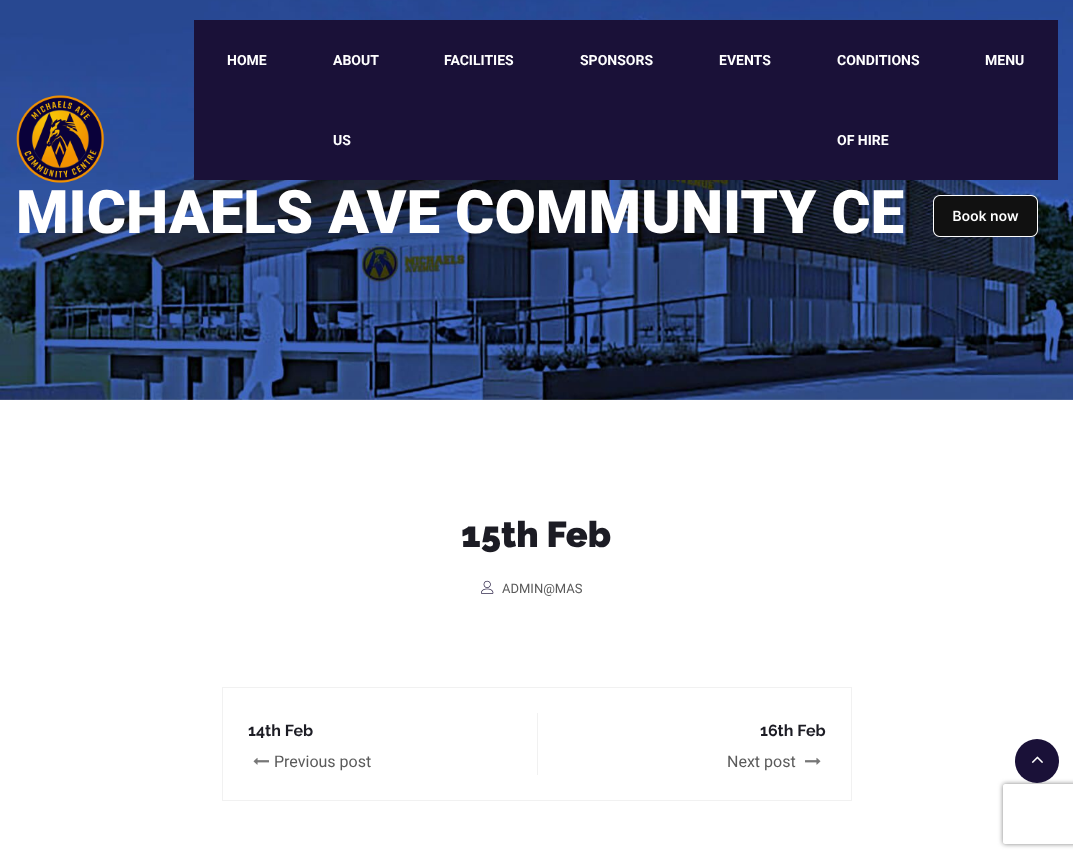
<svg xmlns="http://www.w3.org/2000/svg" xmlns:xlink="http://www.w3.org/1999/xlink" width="1073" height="858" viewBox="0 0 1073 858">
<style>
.cls-1{font:bold 14px Roboto;fill:#ffffff}
.cls-2{font:900 60px Roboto;fill:#ffffff}
.cls-3{font:900 36px Raleway;fill:#1c1c24}
.cls-4{font:13px Roboto;fill:#5a5a5a}
.cls-5{font:bold 16px Raleway;fill:#1c1c24}
.cls-6{font:16px Roboto;fill:#5a5a5a}
</style>
<defs>
<clipPath id="clip1"><path d="M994 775H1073V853H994ZM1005 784H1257C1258 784 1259 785 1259 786V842C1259 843 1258 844 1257 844H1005C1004 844 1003 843 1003 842V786C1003 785 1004 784 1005 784Z" clip-rule="evenodd"/></clipPath>
</defs>
<rect width="100%" height="100%" fill="#ffffff"/>
<image xlink:href="image2.png" x="0" y="0" width="1073" height="400"/>
<image xlink:href="image0.png" x="16" y="95" width="89" height="88"/>
<rect fill="#1a1138" x="194" y="20" width="864" height="160"/>
<image xlink:href="image1.png" x="933" y="195" width="105" height="42"/>
<image xlink:href="image3.png" x="481" y="580" width="13" height="14"/>
<rect fill="none" stroke="#f1f1f1" x="222.5" y="687.5" width="629" height="113"/>
<image xlink:href="image4.png" x="253" y="757" width="16" height="8"/>
<rect fill="#f1f1f1" x="537" y="713" width="1" height="62"/>
<image xlink:href="image5.png" x="805" y="757" width="16" height="8"/>
<g clip-path="url(#clip1)">
<rect fill="#808080" filter="blur(2.5px)" x="1003" y="784" width="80" height="60" rx="2"/>
</g>
<circle fill="#1a1138" cx="1037" cy="761" r="22"/>
<image xlink:href="image6.png" x="1031" y="756" width="12" height="7"/>
<text class="cls-1" x="227" y="65">HOME</text>
<text class="cls-1" x="333" y="65">ABOUT</text>
<text class="cls-1" x="333" y="145">US</text>
<text class="cls-1" x="444" y="65">FACILITIES</text>
<text class="cls-1" x="580" y="65">SPONSORS</text>
<text class="cls-1" x="719" y="65">EVENTS</text>
<text class="cls-1" x="837" y="65">CONDITIONS</text>
<text class="cls-1" x="837" y="145">OF HIRE</text>
<text class="cls-1" x="985" y="65">MENU</text>
<text class="cls-2" x="16" y="233">MICHAELS AVE COMMUNITY CE</text>
<text class="cls-3" x="461" y="547">15th Feb</text>
<text class="cls-4" x="502" y="593">ADMIN@MAS</text>
<text class="cls-5" x="248" y="736">14th Feb</text>
<text class="cls-6" x="274" y="767">Previous post</text>
<text class="cls-5" x="760" y="736">16th Feb</text>
<text class="cls-6" x="727" y="767">Next post</text>
</svg>
